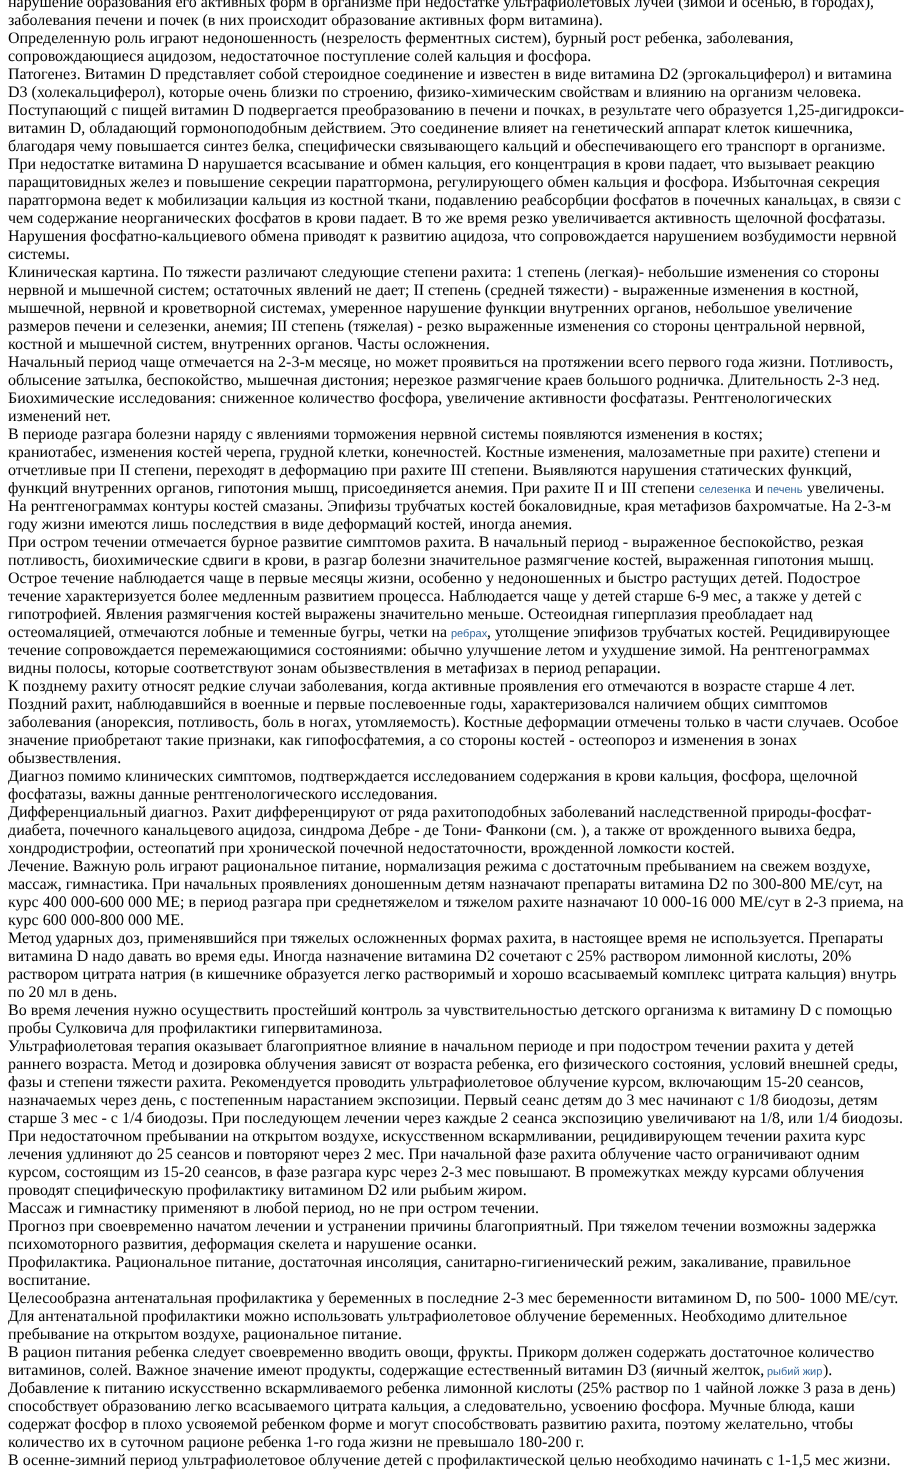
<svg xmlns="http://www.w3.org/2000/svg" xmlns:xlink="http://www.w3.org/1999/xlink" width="914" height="1480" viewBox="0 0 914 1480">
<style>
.cls-1{font:16px Liberation Serif;fill:#000000}
.cls-2{font:11px Liberation Sans;fill:#336699}
</style>
<rect width="100%" height="100%" fill="#ffffff"/>
<text class="cls-1"><tspan x="8" y="7">нарушение образования его активных форм в организме при недостатке ультрафиолетовых лучей (зимой и осенью, в городах),</tspan><tspan x="8" y="25">заболевания печени и почек (в них происходит образование активных форм витамина).</tspan><tspan x="8" y="43">Определенную роль играют недоношенность (незрелость ферментных систем), бурный рост ребенка, заболевания,</tspan><tspan x="8" y="61">сопровождающиеся ацидозом, недостаточное поступление солей кальция и фосфора.</tspan><tspan x="8" y="79">Патогенез. Витамин D представляет собой стероидное соединение и известен в виде витамина D2 (эргокальциферол) и витамина</tspan><tspan x="8" y="97">D3 (холекальциферол), которые очень близки по строению, физико-химическим свойствам и влиянию на организм человека.</tspan><tspan x="8" y="115">Поступающий с пищей витамин D подвергается преобразованию в печени и почках, в результате чего образуется 1,25-дигидрокси-</tspan><tspan x="8" y="133">витамин D, обладающий гормоноподобным действием. Это соединение влияет на генетический аппарат клеток кишечника,</tspan><tspan x="8" y="151">благодаря чему повышается синтез белка, специфически связывающего кальций и обеспечивающего его транспорт в организме.</tspan><tspan x="8" y="169">При недостатке витамина D нарушается всасывание и обмен кальция, его концентрация в крови падает, что вызывает реакцию</tspan><tspan x="8" y="187">паращитовидных желез и повышение секреции паратгормона, регулирующего обмен кальция и фосфора. Избыточная секреция</tspan><tspan x="8" y="205">паратгормона ведет к мобилизации кальция из костной ткани, подавлению реабсорбции фосфатов в почечных канальцах, в связи с</tspan><tspan x="8" y="223">чем содержание неорганических фосфатов в крови падает. В то же время резко увеличивается активность щелочной фосфатазы.</tspan><tspan x="8" y="241">Нарушения фосфатно-кальциевого обмена приводят к развитию ацидоза, что сопровождается нарушением возбудимости нервной</tspan><tspan x="8" y="259">системы.</tspan><tspan x="8" y="277">Клиническая картина. По тяжести различают следующие степени рахита: 1 степень (легкая)- небольшие изменения со стороны</tspan><tspan x="8" y="295">нервной и мышечной систем; остаточных явлений не дает; II степень (средней тяжести) - выраженные изменения в костной,</tspan><tspan x="8" y="313">мышечной, нервной и кроветворной системах, умеренное нарушение функции внутренних органов, небольшое увеличение</tspan><tspan x="8" y="331">размеров печени и селезенки, анемия; III степень (тяжелая) - резко выраженные изменения со стороны центральной нервной,</tspan><tspan x="8" y="349">костной и мышечной систем, внутренних органов. Часты осложнения.</tspan><tspan x="8" y="367">Начальный период чаще отмечается на 2-3-м месяце, но может проявиться на протяжении всего первого года жизни. Потливость,</tspan><tspan x="8" y="385">облысение затылка, беспокойство, мышечная дистония; нерезкое размягчение краев большого родничка. Длительность 2-3 нед.</tspan><tspan x="8" y="403">Биохимические исследования: сниженное количество фосфора, увеличение активности фосфатазы. Рентгенологических</tspan><tspan x="8" y="421">изменений нет.</tspan><tspan x="8" y="439">В периоде разгара болезни наряду с явлениями торможения нервной системы появляются изменения в костях;</tspan><tspan x="8" y="457">краниотабес, изменения костей черепа, грудной клетки, конечностей. Костные изменения, малозаметные при рахите) степени и</tspan><tspan x="8" y="475">отчетливые при II степени, переходят в деформацию при рахите III степени. Выявляются нарушения статических функций,</tspan><tspan x="8" y="493">функций внутренних органов, гипотония мышц, присоединяется анемия. При рахите II и III степени</tspan></text>
<text class="cls-2" x="699" y="493">селезенка</text>
<text class="cls-1" x="755" y="493">и</text>
<text class="cls-2" x="767" y="493">печень</text>
<text class="cls-1" x="807" y="493">увеличены.</text>
<text class="cls-1"><tspan x="8" y="511">На рентгенограммах контуры костей смазаны. Эпифизы трубчатых костей бокаловидные, края метафизов бахромчатые. На 2-3-м</tspan><tspan x="8" y="529">году жизни имеются лишь последствия в виде деформаций костей, иногда анемия.</tspan><tspan x="8" y="547">При остром течении отмечается бурное развитие симптомов рахита. В начальный период - выраженное беспокойство, резкая</tspan><tspan x="8" y="565">потливость, биохимические сдвиги в крови, в разгар болезни значительное размягчение костей, выраженная гипотония мышц.</tspan><tspan x="8" y="583">Острое течение наблюдается чаще в первые месяцы жизни, особенно у недоношенных и быстро растущих детей. Подострое</tspan><tspan x="8" y="601">течение характеризуется более медленным развитием процесса. Наблюдается чаще у детей старше 6-9 мес, а также у детей с</tspan><tspan x="8" y="619">гипотрофией. Явления размягчения костей выражены значительно меньше. Остеоидная гиперплазия преобладает над</tspan><tspan x="8" y="637">остеомаляцией, отмечаются лобные и теменные бугры, четки на</tspan></text>
<text class="cls-2" x="451" y="637">ребрах</text>
<text class="cls-1" x="487" y="637">, утолщение эпифизов трубчатых костей. Рецидивирующее</text>
<text class="cls-1"><tspan x="8" y="655">течение сопровождается перемежающимися состояниями: обычно улучшение летом и ухудшение зимой. На рентгенограммах</tspan><tspan x="8" y="673">видны полосы, которые соответствуют зонам обызвествления в метафизах в период репарации.</tspan><tspan x="8" y="691">К позднему рахиту относят редкие случаи заболевания, когда активные проявления его отмечаются в возрасте старше 4 лет.</tspan><tspan x="8" y="709">Поздний рахит, наблюдавшийся в военные и первые послевоенные годы, характеризовался наличием общих симптомов</tspan><tspan x="8" y="727">заболевания (анорексия, потливость, боль в ногах, утомляемость). Костные деформации отмечены только в части случаев. Особое</tspan><tspan x="8" y="745">значение приобретают такие признаки, как гипофосфатемия, а со стороны костей - остеопороз и изменения в зонах</tspan><tspan x="8" y="763">обызвествления.</tspan><tspan x="8" y="781">Диагноз помимо клинических симптомов, подтверждается исследованием содержания в крови кальция, фосфора, щелочной</tspan><tspan x="8" y="799">фосфатазы, важны данные рентгенологического исследования.</tspan><tspan x="8" y="817">Дифференциальный диагноз. Рахит дифференцируют от ряда рахитоподобных заболеваний наследственной природы-фосфат-</tspan><tspan x="8" y="835">диабета, почечного канальцевого ацидоза, синдрома Дебре - де Тони- Фанкони (см. ), а также от врожденного вывиха бедра,</tspan><tspan x="8" y="853">хондродистрофии, остеопатий при хронической почечной недостаточности, врожденной ломкости костей.</tspan><tspan x="8" y="871">Лечение. Важную роль играют рациональное питание, нормализация режима с достаточным пребыванием на свежем воздухе,</tspan><tspan x="8" y="889">массаж, гимнастика. При начальных проявлениях доношенным детям назначают препараты витамина D2 по 300-800 МЕ/сут, на</tspan><tspan x="8" y="907">курс 400 000-600 000 ME; в период разгара при среднетяжелом и тяжелом рахите назначают 10 000-16 000 МЕ/сут в 2-3 приема, на</tspan><tspan x="8" y="925">курс 600 000-800 000 ME.</tspan><tspan x="8" y="943">Метод ударных доз, применявшийся при тяжелых осложненных формах рахита, в настоящее время не используется. Препараты</tspan><tspan x="8" y="961">витамина D надо давать во время еды. Иногда назначение витамина D2 сочетают с 25% раствором лимонной кислоты, 20%</tspan><tspan x="8" y="979">раствором цитрата натрия (в кишечнике образуется легко растворимый и хорошо всасываемый комплекс цитрата кальция) внутрь</tspan><tspan x="8" y="997">по 20 мл в день.</tspan><tspan x="8" y="1015">Во время лечения нужно осуществить простейший контроль за чувствительностью детского организма к витамину D с помощью</tspan><tspan x="8" y="1033">пробы Сулковича для профилактики гипервитаминоза.</tspan><tspan x="8" y="1051">Ультрафиолетовая терапия оказывает благоприятное влияние в начальном периоде и при подостром течении рахита у детей</tspan><tspan x="8" y="1069">раннего возраста. Метод и дозировка облучения зависят от возраста ребенка, его физического состояния, условий внешней среды,</tspan><tspan x="8" y="1087">фазы и степени тяжести рахита. Рекомендуется проводить ультрафиолетовое облучение курсом, включающим 15-20 сеансов,</tspan><tspan x="8" y="1105">назначаемых через день, с постепенным нарастанием экспозиции. Первый сеанс детям до 3 мес начинают с 1/8 биодозы, детям</tspan><tspan x="8" y="1123">старше 3 мес - с 1/4 биодозы. При последующем лечении через каждые 2 сеанса экспозицию увеличивают на 1/8, или 1/4 биодозы.</tspan><tspan x="8" y="1141">При недостаточном пребывании на открытом воздухе, искусственном вскармливании, рецидивирующем течении рахита курс</tspan><tspan x="8" y="1159">лечения удлиняют до 25 сеансов и повторяют через 2 мес. При начальной фазе рахита облучение часто ограничивают одним</tspan><tspan x="8" y="1177">курсом, состоящим из 15-20 сеансов, в фазе разгара курс через 2-3 мес повышают. В промежутках между курсами облучения</tspan><tspan x="8" y="1195">проводят специфическую профилактику витамином D2 или рыбьим жиром.</tspan><tspan x="8" y="1213">Массаж и гимнастику применяют в любой период, но не при остром течении.</tspan><tspan x="8" y="1231">Прогноз при своевременно начатом лечении и устранении причины благоприятный. При тяжелом течении возможны задержка</tspan><tspan x="8" y="1249">психомоторного развития, деформация скелета и нарушение осанки.</tspan><tspan x="8" y="1267">Профилактика. Рациональное питание, достаточная инсоляция, санитарно-гигиенический режим, закаливание, правильное</tspan><tspan x="8" y="1285">воспитание.</tspan><tspan x="8" y="1303">Целесообразна антенатальная профилактика у беременных в последние 2-3 мес беременности витамином D, по 500- 1000 МЕ/сут.</tspan><tspan x="8" y="1321">Для антенатальной профилактики можно использовать ультрафиолетовое облучение беременных. Необходимо длительное</tspan><tspan x="8" y="1339">пребывание на открытом воздухе, рациональное питание.</tspan><tspan x="8" y="1357">В рацион питания ребенка следует своевременно вводить овощи, фрукты. Прикорм должен содержать достаточное количество</tspan><tspan x="8" y="1375">витаминов, солей. Важное значение имеют продукты, содержащие естественный витамин D3 (яичный желток,</tspan></text>
<text class="cls-2" x="767" y="1375">рыбий жир</text>
<text class="cls-1" x="823" y="1375">).</text>
<text class="cls-1"><tspan x="8" y="1393">Добавление к питанию искусственно вскармливаемого ребенка лимонной кислоты (25% раствор по 1 чайной ложке 3 раза в день)</tspan><tspan x="8" y="1411">способствует образованию легко всасываемого цитрата кальция, а следовательно, усвоению фосфора. Мучные блюда, каши</tspan><tspan x="8" y="1429">содержат фосфор в плохо усвояемой ребенком форме и могут способствовать развитию рахита, поэтому желательно, чтобы</tspan><tspan x="8" y="1447">количество их в суточном рационе ребенка 1-го года жизни не превышало 180-200 г.</tspan><tspan x="8" y="1465">В осенне-зимний период ультрафиолетовое облучение детей с профилактической целью необходимо начинать с 1-1,5 мес жизни.</tspan></text>
</svg>
